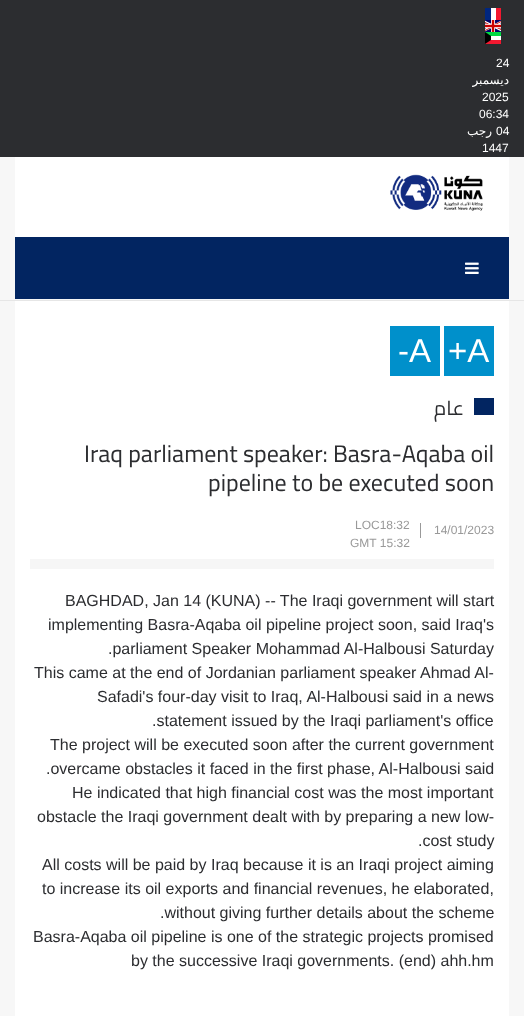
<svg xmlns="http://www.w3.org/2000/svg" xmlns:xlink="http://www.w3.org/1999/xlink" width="524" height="1016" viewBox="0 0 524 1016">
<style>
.cls-1{font:12px Liberation Sans;fill:#ffffff}
.cls-2{font:12px DejaVu Sans;direction:rtl;fill:#ffffff}
.cls-3{font:33px Liberation Sans;fill:#ffffff}
.cls-4{font:20px Cairo;direction:rtl;fill:#2c2d30}
.cls-5{font:24px Cairo;fill:#2c2d30}
.cls-6{font:12px Liberation Sans;fill:#999999}
.cls-7{font:16px Liberation Sans;fill:#2c2d30}
</style>
<rect width="100%" height="100%" fill="#f7f7f7"/>
<rect fill="#2c2d30" x="0" y="0" width="524" height="157"/>
<rect fill="#ffffff" x="491" y="8" width="5" height="12"/>
<rect fill="#00267f" x="485" y="8" width="6" height="12"/>
<rect fill="#f31830" x="496" y="8" width="5" height="12"/>
<image xlink:href="image0.png" x="485" y="20" width="16" height="12"/>
<image xlink:href="image1.png" x="485" y="32" width="16" height="12"/>
<rect fill="#ffffff" x="15" y="157" width="494" height="80"/>
<image xlink:href="image2.png" x="390" y="174" width="93" height="37"/>
<rect fill="#022561" x="15" y="237" width="494" height="62"/>
<image xlink:href="image3.png" x="465" y="262" width="14" height="12"/>
<rect fill="#e6e6e6" x="0" y="300" width="524" height="1"/>
<rect fill="#ffffff" x="15" y="301" width="494" height="715"/>
<rect fill="#0090cb" x="390" y="326" width="50" height="50"/>
<rect fill="#0090cb" x="444" y="326" width="50" height="50"/>
<rect fill="#022561" x="474" y="398" width="20" height="17"/>
<rect fill="#999999" x="420" y="523" width="1" height="15"/>
<rect fill="#f6f6f6" x="30" y="559" width="464" height="10"/>
<text class="cls-1" x="496" y="67">24</text>
<text class="cls-2" x="509" y="84">ديسمبر</text>
<text class="cls-1" x="482" y="101">2025</text>
<text class="cls-1" x="479" y="118">06:34</text>
<text class="cls-2" x="492" y="135">رجب</text>
<text class="cls-1" x="496" y="135">04</text>
<text class="cls-1" x="482" y="152">1447</text>
<text class="cls-3" x="398" y="362">-A</text>
<text class="cls-3" x="448" y="362">+A</text>
<text class="cls-4" x="464" y="415">عام</text>
<text class="cls-5" x="84" y="462">Iraq parliament speaker: Basra-Aqaba oil</text>
<text class="cls-5" x="208" y="491">pipeline to be executed soon</text>
<text class="cls-6" x="355" y="529">LOC18:32</text>
<text class="cls-6" x="350" y="547">GMT 15:32</text>
<text class="cls-6" x="434" y="534">14/01/2023</text>
<text class="cls-7" x="65" y="606">BAGHDAD, Jan 14 (KUNA) -- The Iraqi government will start</text>
<text class="cls-7" x="48" y="630">implementing Basra-Aqaba oil pipeline project soon, said Iraq's</text>
<text class="cls-7" x="108" y="654">.parliament Speaker Mohammad Al-Halbousi Saturday</text>
<text class="cls-7" x="34" y="678">This came at the end of Jordanian parliament speaker Ahmad Al-</text>
<text class="cls-7" x="97" y="702">Safadi's four-day visit to Iraq, Al-Halbousi said in a news</text>
<text class="cls-7" x="152" y="726">.statement issued by the Iraqi parliament's office</text>
<text class="cls-7" x="50" y="750">The project will be executed soon after the current government</text>
<text class="cls-7" x="46" y="774">.overcame obstacles it faced in the first phase, Al-Halbousi said</text>
<text class="cls-7" x="72" y="798">He indicated that high financial cost was the most important</text>
<text class="cls-7" x="37" y="822">obstacle the Iraqi government dealt with by preparing a new low-</text>
<text class="cls-7" x="418" y="846">.cost study</text>
<text class="cls-7"><tspan x="42" y="870">All costs will be paid by Iraq because it is an Iraqi project aiming</tspan><tspan x="42" y="894">to increase its oil exports and financial revenues, he elaborated,</tspan></text>
<text class="cls-7" x="160" y="918">.without giving further details about the scheme</text>
<text class="cls-7" x="33" y="942">Basra-Aqaba oil pipeline is one of the strategic projects promised</text>
<text class="cls-7" x="131" y="966">by the successive Iraqi governments. (end) ahh.hm</text>
</svg>
